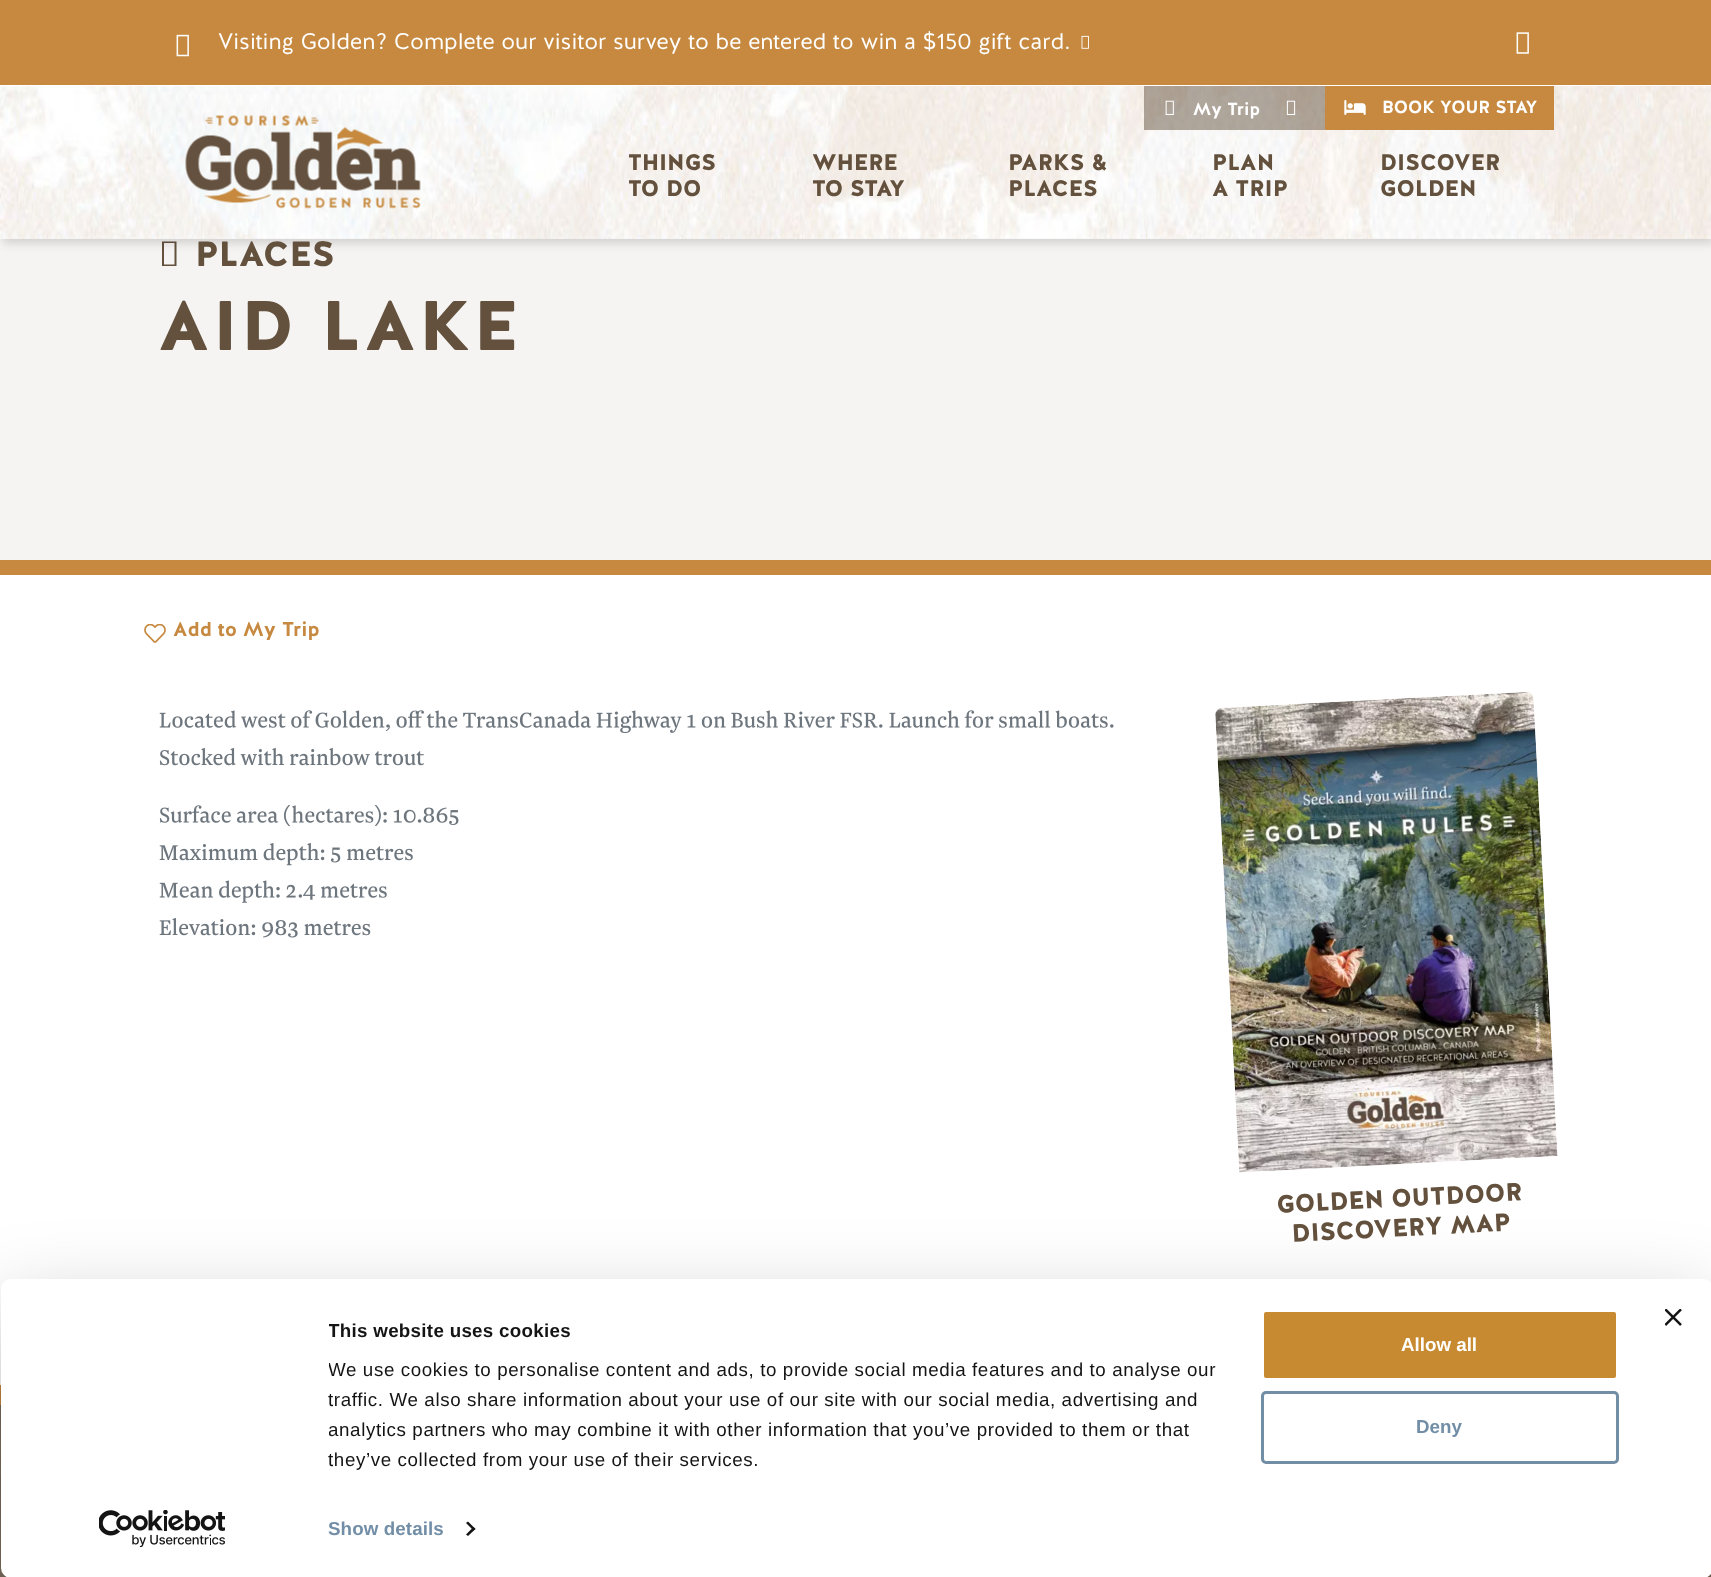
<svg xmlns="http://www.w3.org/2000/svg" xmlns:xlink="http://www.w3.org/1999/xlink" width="1711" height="1577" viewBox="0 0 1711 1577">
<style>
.cls-1{font:22.5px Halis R;fill:#ffffff}
.cls-2{font:bold 17.5px Halis R;fill:#ffffff}
.cls-3{font:900 22.5px Halis R;fill:#63513d}
.cls-4{font:900 35px Halis R;fill:#63513d}
.cls-5{font:900 70px Halis R;letter-spacing:3px;fill:#63513d}
.cls-6{font:bold 20px Halis R;fill:#c6893f}
.cls-7{font:900 25px Halis R;fill:#63513d}
.cls-8{font:bold 18.75px Liberation Sans;letter-spacing:0.3px;fill:#141414}
.cls-9{font:18.75px Liberation Sans;letter-spacing:0.62px;fill:#141414}
.cls-10{font:bold 18.75px Liberation Sans;letter-spacing:0.1px;fill:#728ea7}
.cls-11{font:bold 18.75px Liberation Sans;fill:#ffffff}
.cls-12{font:bold 18.75px Liberation Sans;fill:#728ea7}
</style>
<defs>
<clipPath id="clip1"><rect x="329" y="1316" width="925" height="159"/></clipPath>
</defs>
<rect width="100%" height="100%" fill="#ffffff"/>
<rect fill="#f5f4f2" x="0" y="238" width="1711" height="322"/>
<path fill="#63513d" d="M162 266V241.5H176.5V266ZM164 264.5H174.5V243H164Z"/>
<rect fill="#000000" fill-opacity="0.15" filter="blur(5px)" x="3" y="4" width="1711" height="239"/>
<image xlink:href="image0.png" x="0" y="86" width="1711" height="153"/>
<rect fill="#c6893f" x="0" y="0" width="1711" height="85"/>
<rect fill="#ffffff" x="0" y="85" width="1711" height="1"/>
<image xlink:href="image1.png" x="176" y="34" width="13" height="23"/>
<image xlink:href="image2.png" x="1081" y="35" width="8" height="14"/>
<image xlink:href="image3.png" x="1516" y="32" width="13" height="22"/>
<rect fill="#63513d" fill-opacity="0.5" x="1144" y="86" width="181" height="44"/>
<image xlink:href="image4.png" x="1165" y="100" width="9" height="15"/>
<image xlink:href="image5.png" x="1286" y="100" width="10" height="15"/>
<rect fill="#c6893f" x="1325" y="86" width="229" height="44"/>
<image xlink:href="image6.png" x="1344" y="100" width="22" height="15"/>
<image xlink:href="image7.png" x="185" y="115" width="236" height="94"/>
<rect fill="#c6893f" x="0" y="560" width="1711" height="15"/>
<image xlink:href="image8.png" x="144" y="624" width="22" height="19"/>
<image xlink:href="image9.png" x="159" y="710" width="955" height="23"/>
<image xlink:href="image10.png" x="159" y="748" width="265" height="18"/>
<image xlink:href="image11.png" x="159" y="805" width="300" height="21"/>
<image xlink:href="image12.png" x="159" y="843" width="254" height="23"/>
<image xlink:href="image13.png" x="159" y="880" width="228" height="23"/>
<image xlink:href="image14.png" x="159" y="918" width="212" height="20"/>
<image xlink:href="image15.png" x="1215" y="692" width="343" height="481"/>
<image xlink:href="image16.png" x="0" y="1405" width="1711" height="172"/>
<rect fill="#c6893f" x="0" y="1385" width="1" height="20"/>
<rect fill="#000000" fill-opacity="0.3" filter="blur(44px)" x="1" y="1316" width="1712" height="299" rx="10"/>
<rect fill="#ffffff" x="1" y="1279" width="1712" height="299" rx="10"/>
<image xlink:href="image17.png" x="1665" y="1309" width="17" height="17"/>
<path fill="#141414" d="M468 1521.5L475.5 1529L473.5 1530.5L466 1523Z"/>
<path fill="#141414" d="M473.5 1527L475.5 1529L468 1536L466 1534.5Z"/>
<rect fill="#c78a31" stroke="#ffffff" stroke-width="3" x="1262.5" y="1310.5" width="355" height="69" rx="3.5"/>
<rect fill="none" stroke="#728ea7" stroke-width="3" x="1262.5" y="1392.5" width="355" height="70" rx="3.5"/>
<image xlink:href="image18.png" x="99" y="1510" width="126" height="38"/>
<text class="cls-1" x="218" y="49">Visiting Golden? Complete our visitor survey to be entered to win a $150 gift card.</text>
<text class="cls-2" x="1193" y="115">My Trip</text>
<text class="cls-2" x="1382" y="113">BOOK YOUR STAY</text>
<text class="cls-3"><tspan x="628" y="170">THINGS</tspan><tspan x="628" y="196">TO DO</tspan></text>
<text class="cls-3"><tspan x="812" y="170">WHERE</tspan><tspan x="812" y="196">TO STAY</tspan></text>
<text class="cls-3"><tspan x="1008" y="170">PARKS &amp;</tspan><tspan x="1008" y="196">PLACES</tspan></text>
<text class="cls-3"><tspan x="1212" y="170">PLAN</tspan><tspan x="1212" y="196">A TRIP</tspan></text>
<text class="cls-3"><tspan x="1380" y="170">DISCOVER</tspan><tspan x="1380" y="196">GOLDEN</tspan></text>
<text class="cls-4" x="195" y="266">PLACES</text>
<text class="cls-5" x="158" y="350">AID LAKE</text>
<text class="cls-6" x="173" y="636">Add to My Trip</text>
<text class="cls-7" x="1277" y="1213" transform="rotate(-3 1277 1213)">GOLDEN OUTDOOR</text>
<text class="cls-7" x="1292" y="1242" transform="rotate(-3 1292 1242)">DISCOVERY MAP</text>
<g clip-path="url(#clip1)">
<text class="cls-8" x="328" y="1337">This website uses cookies</text>
<text class="cls-9" x="328" y="1376">We use cookies to personalise content and ads, to provide social media features and to analyse our</text>
</g>
<text class="cls-9" x="328" y="1406">traffic. We also share information about your use of our site with our social media, advertising and</text>
<g clip-path="url(#clip1)">
<text class="cls-9" x="328" y="1436">analytics partners who may combine it with other information that you’ve provided to them or that</text>
</g>
<text class="cls-9" x="328" y="1466">they’ve collected from your use of their services.</text>
<text class="cls-10" x="328" y="1535">Show details</text>
<text class="cls-11" x="1401" y="1351">Allow all</text>
<text class="cls-12" x="1416" y="1433">Deny</text>
</svg>
